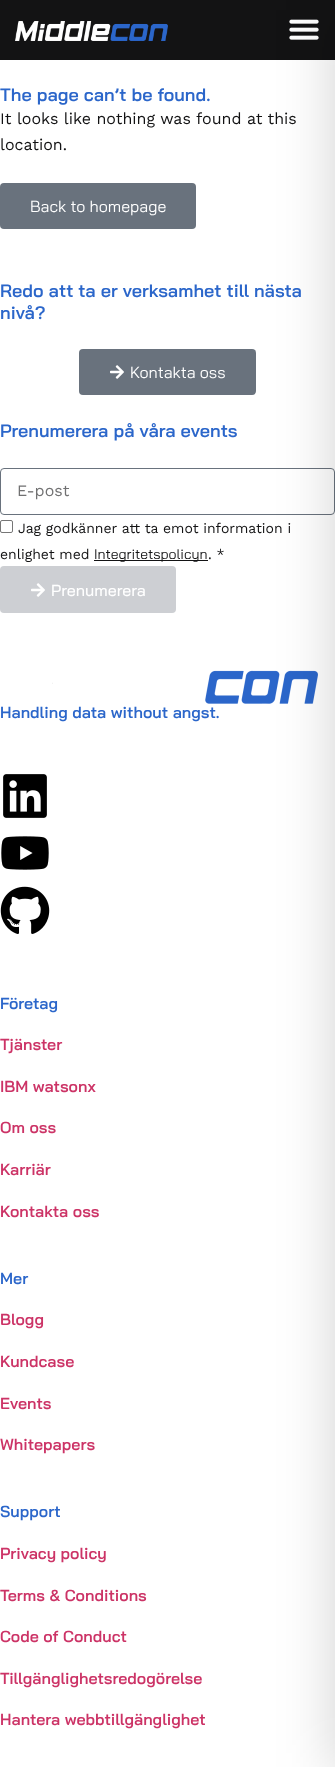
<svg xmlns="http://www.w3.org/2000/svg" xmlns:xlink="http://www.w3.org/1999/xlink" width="335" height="1767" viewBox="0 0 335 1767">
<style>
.cls-1{font:600 18px Bai Jamjuree;fill:#2b66ca}
.cls-2{font:16px Work Sans;fill:#131314}
.cls-3{font:16px Bai Jamjuree;fill:#ffffff}
.cls-4{font:16px Work Sans;fill:#717172}
.cls-5{font:14px Work Sans;fill:#131314}
.cls-6{font:14px Bai Jamjuree;fill:#131314}
.cls-7{font:500 16px Bai Jamjuree;fill:#ffffff}
.cls-8{font:600 16px Bai Jamjuree;fill:#2b66ca}
.cls-9{font:600 16px Bai Jamjuree;fill:#cc3366}
</style>
<rect width="100%" height="100%" fill="#ffffff"/>
<rect fill="#131314" x="0" y="0" width="335" height="60"/>
<image xlink:href="image0.png" x="15" y="21" width="153" height="20"/>
<image xlink:href="image1.png" x="289" y="19" width="30" height="21"/>
<rect fill="#69727d" x="79" y="349" width="177" height="46" rx="4"/>
<rect fill="none" stroke="#69727d" x="0.5" y="468.5" width="334" height="46" rx="3.5"/>
<image xlink:href="image4.png" x="52" y="670" width="266" height="34"/>
<rect fill="#000000" fill-opacity="0.2" filter="blur(30px)" x="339" y="10" width="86" height="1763"/>
<rect fill="#69727d" x="0" y="183" width="196" height="46" rx="4"/>
<image xlink:href="image2.png" x="110" y="365" width="14" height="14"/>
<rect fill="none" stroke="#767676" x="0.5" y="520.5" width="12" height="12" rx="1.5"/>
<rect fill="#131314" x="94" y="560" width="114" height="1"/>
<rect fill="#cdcfd3" x="0" y="566" width="176" height="47" rx="4"/>
<image xlink:href="image3.png" x="31" y="583" width="14" height="14"/>
<image xlink:href="image5.png" x="3" y="774" width="44" height="44"/>
<image xlink:href="image6.png" x="1" y="836" width="48" height="34"/>
<image xlink:href="image7.png" x="0" y="886" width="50" height="48"/>
<text class="cls-1" x="0" y="101">The page can’t be found.</text>
<text class="cls-2"><tspan x="0" y="124">It looks like nothing was found at this</tspan><tspan x="0" y="150">location.</tspan></text>
<text class="cls-3" x="30" y="212">Back to homepage</text>
<text class="cls-1"><tspan x="0" y="297">Redo att ta er verksamhet till nästa</tspan><tspan x="0" y="319">nivå?</tspan></text>
<text class="cls-3" x="130" y="378">Kontakta oss</text>
<text class="cls-1" x="0" y="437">Prenumerera på våra events</text>
<text class="cls-4" x="17" y="496">E-post</text>
<text class="cls-5" x="18" y="533">Jag godkänner att ta emot information i</text>
<text class="cls-5" x="0" y="559">enlighet med</text>
<text class="cls-6" x="94" y="559">Integritetspolicyn</text>
<text class="cls-5" x="208" y="559">. *</text>
<text class="cls-7" x="51" y="596">Prenumerera</text>
<text class="cls-8" x="0" y="718">Handling data without angst.</text>
<text class="cls-8" x="0" y="1009">Företag</text>
<text class="cls-9" x="0" y="1050">Tjänster</text>
<text class="cls-9" x="0" y="1092">IBM watsonx</text>
<text class="cls-9" x="0" y="1133">Om oss</text>
<text class="cls-9" x="0" y="1175">Karriär</text>
<text class="cls-9" x="0" y="1217">Kontakta oss</text>
<text class="cls-8" x="0" y="1284">Mer</text>
<text class="cls-9" x="0" y="1325">Blogg</text>
<text class="cls-9" x="0" y="1367">Kundcase</text>
<text class="cls-9" x="0" y="1409">Events</text>
<text class="cls-9" x="0" y="1450">Whitepapers</text>
<text class="cls-8" x="0" y="1517">Support</text>
<text class="cls-9" x="0" y="1559">Privacy policy</text>
<text class="cls-9" x="0" y="1601">Terms &amp; Conditions</text>
<text class="cls-9" x="0" y="1642">Code of Conduct</text>
<text class="cls-9" x="0" y="1684">Tillgänglighetsredogörelse</text>
<text class="cls-9" x="0" y="1725">Hantera webbtillgänglighet</text>
</svg>
